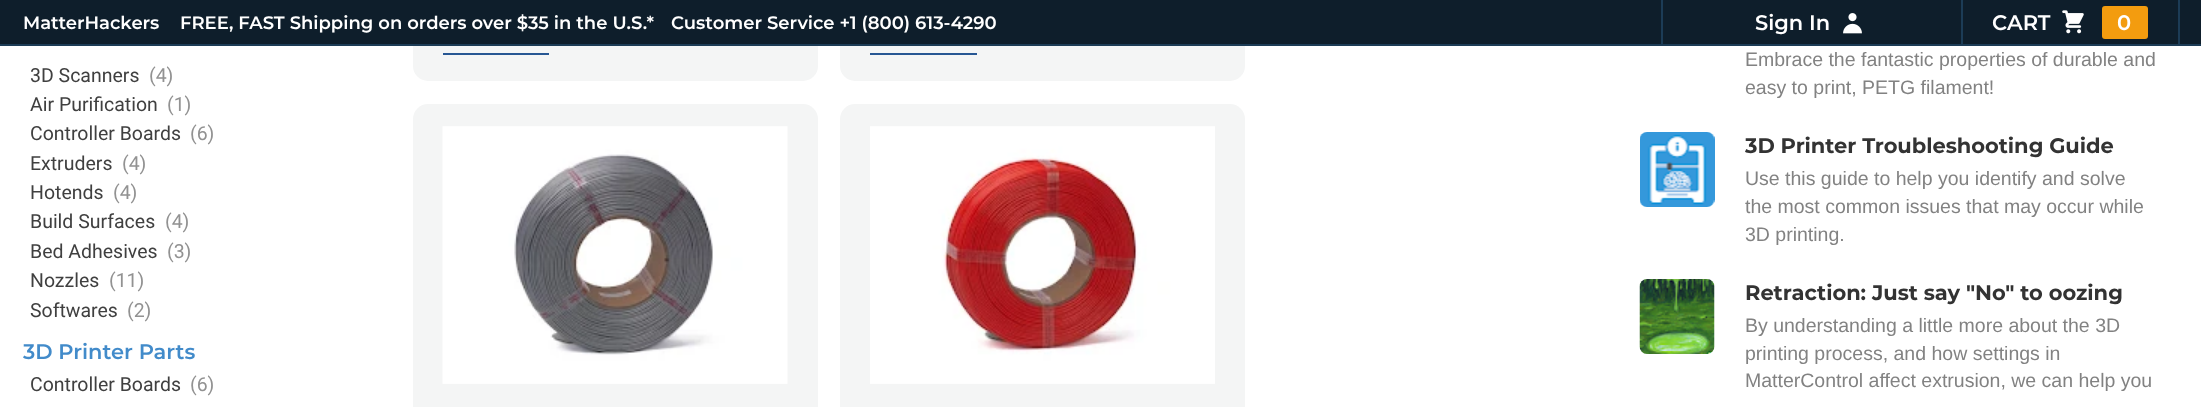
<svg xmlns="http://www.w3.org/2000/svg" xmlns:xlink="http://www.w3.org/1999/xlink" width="2201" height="407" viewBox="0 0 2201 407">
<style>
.cls-1{font:600 18px Montserrat;fill:#ffffff}
.cls-2{font:600 21px Montserrat;fill:#ffffff}
.cls-3{font:19.5px Roboto;fill:#404040}
.cls-4{font:19.5px Roboto;fill:#929292}
.cls-5{font:600 21px Montserrat;fill:#428bca}
.cls-6{font:19.5px Liberation Sans;fill:#828282}
.cls-7{font:bold 21px Montserrat;letter-spacing:-0.05px;fill:#333333}
</style>
<rect width="100%" height="100%" fill="#ffffff"/>
<rect fill="#f4f5f5" x="413" y="-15" width="405" height="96" rx="15"/>
<rect fill="#f4f5f5" x="840" y="-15" width="405" height="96" rx="15"/>
<rect fill="#0e1e2b" x="0" y="0" width="2201" height="44"/>
<rect fill="#1c3c56" x="0" y="44" width="2201" height="2"/>
<rect fill="#1c3c56" x="1661" y="0" width="2" height="45"/>
<image xlink:href="image0.png" x="1843" y="13" width="19" height="21"/>
<rect fill="#1c3c56" x="2178" y="0" width="2" height="45"/>
<rect fill="#1c3c56" x="1961" y="0" width="2" height="45"/>
<image xlink:href="image1.png" x="2062" y="10" width="22" height="24"/>
<rect fill="#f39c0f" x="2102" y="6" width="46" height="33" rx="3"/>
<rect fill="#275793" x="443" y="53" width="106" height="2"/>
<rect fill="#275793" x="870" y="53" width="107" height="2"/>
<rect fill="#f4f5f5" x="413" y="104" width="405" height="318" rx="15"/>
<image xlink:href="image2.png" x="442" y="126" width="346" height="258"/>
<rect fill="#f4f5f5" x="840" y="104" width="405" height="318" rx="15"/>
<image xlink:href="image3.png" x="870" y="126" width="345" height="258"/>
<image xlink:href="image4.png" x="1640" y="132" width="75" height="75"/>
<image xlink:href="image5.png" x="1639" y="279" width="76" height="75"/>
<text class="cls-1" x="23" y="29">MatterHackers</text>
<text class="cls-1" x="180" y="29">FREE, FAST Shipping on orders over $35 in the U.S.*</text>
<text class="cls-1" x="671" y="29">Customer Service +1 (800) 613-4290</text>
<text class="cls-2" x="1755" y="30">Sign In</text>
<text class="cls-2" x="1992" y="30">CART</text>
<text class="cls-2" x="2117" y="30">0</text>
<text class="cls-3" x="30" y="82">3D Scanners</text>
<text class="cls-4" x="149" y="82">(4)</text>
<text class="cls-3" x="30" y="111">Air Purification</text>
<text class="cls-4" x="167" y="111">(1)</text>
<text class="cls-3" x="30" y="140">Controller Boards</text>
<text class="cls-4" x="190" y="140">(6)</text>
<text class="cls-3" x="30" y="170">Extruders</text>
<text class="cls-4" x="122" y="170">(4)</text>
<text class="cls-3" x="30" y="199">Hotends</text>
<text class="cls-4" x="113" y="199">(4)</text>
<text class="cls-3" x="30" y="228">Build Surfaces</text>
<text class="cls-4" x="165" y="228">(4)</text>
<text class="cls-3" x="30" y="258">Bed Adhesives</text>
<text class="cls-4" x="167" y="258">(3)</text>
<text class="cls-3" x="30" y="287">Nozzles</text>
<text class="cls-4" x="109" y="287">(11)</text>
<text class="cls-3" x="30" y="317">Softwares</text>
<text class="cls-4" x="127" y="317">(2)</text>
<text class="cls-5" x="23" y="359">3D Printer Parts</text>
<text class="cls-3" x="30" y="391">Controller Boards</text>
<text class="cls-4" x="190" y="391">(6)</text>
<text class="cls-6"><tspan x="1745" y="66">Embrace the fantastic properties of durable and</tspan><tspan x="1745" y="94">easy to print, PETG filament!</tspan></text>
<text class="cls-7" x="1745" y="153">3D Printer Troubleshooting Guide</text>
<text class="cls-6"><tspan x="1745" y="185">Use this guide to help you identify and solve</tspan><tspan x="1745" y="213">the most common issues that may occur while</tspan><tspan x="1745" y="241">3D printing.</tspan></text>
<text class="cls-7" x="1745" y="300">Retraction: Just say "No" to oozing</text>
<text class="cls-6"><tspan x="1745" y="332">By understanding a little more about the 3D</tspan><tspan x="1745" y="360">printing process, and how settings in</tspan><tspan x="1745" y="387">MatterControl affect extrusion, we can help you</tspan></text>
</svg>
